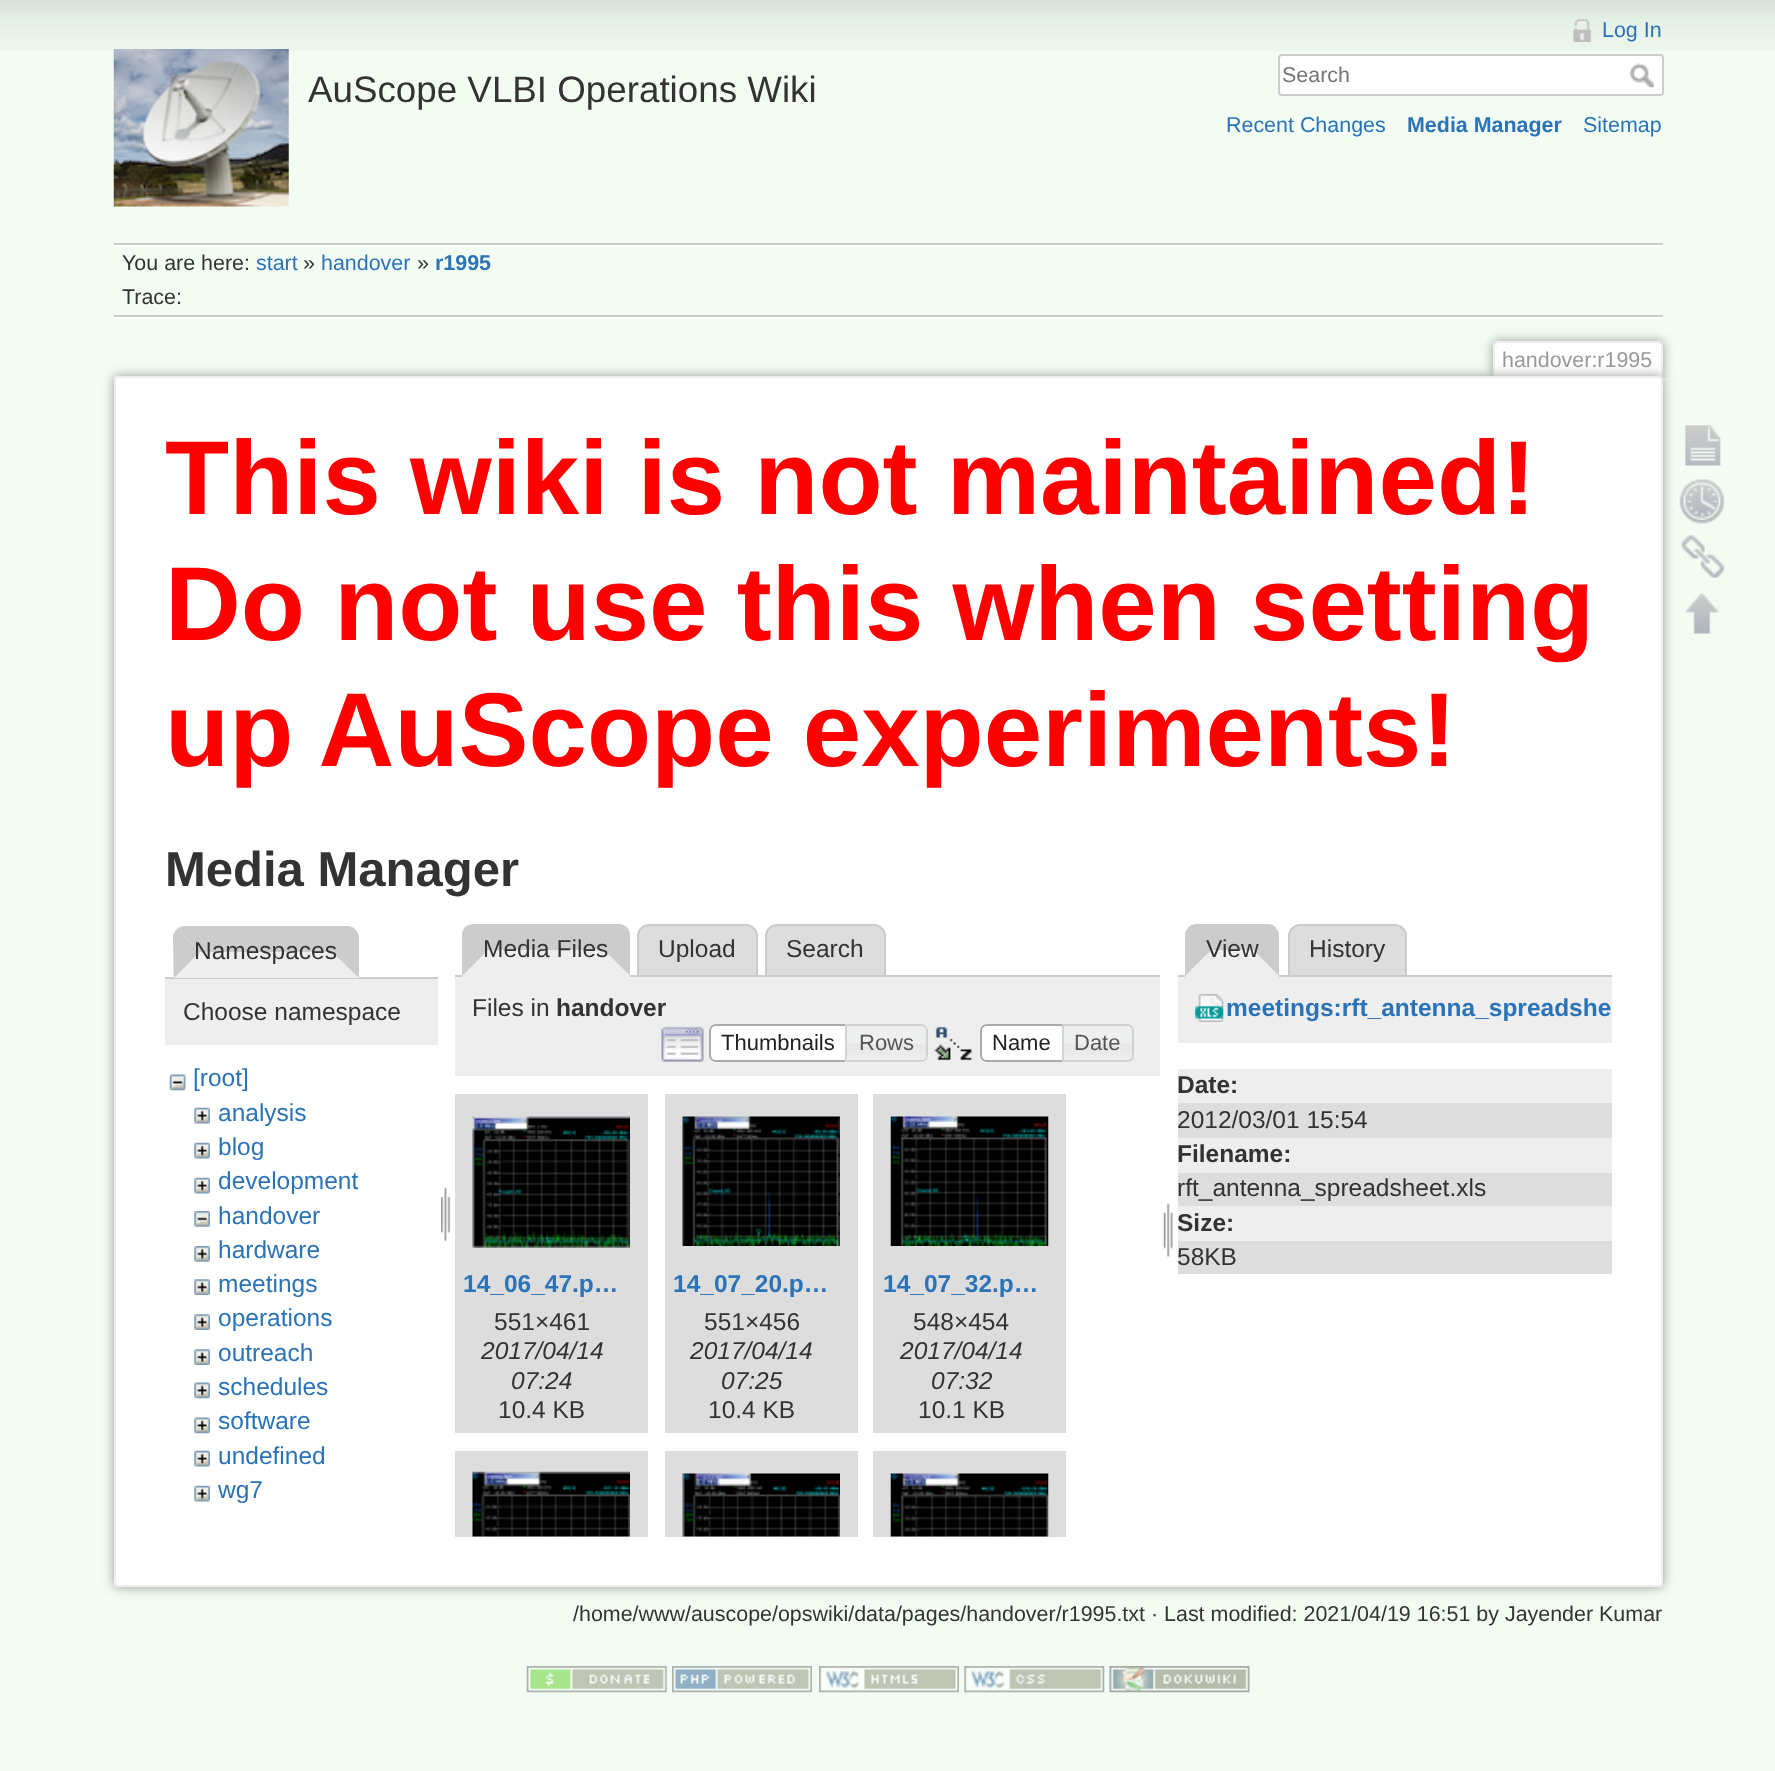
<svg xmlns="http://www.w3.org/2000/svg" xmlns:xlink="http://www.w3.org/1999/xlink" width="1775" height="1771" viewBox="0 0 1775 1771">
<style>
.cls-1{font:36.75px Liberation Sans;fill:#333333}
.cls-2{font:21.45px Liberation Sans;fill:#2b73b7}
.cls-3{font:21.45px Liberation Sans;fill:#757575}
.cls-4{font:bold 21.45px Liberation Sans;fill:#2b73b7}
.cls-5{font:21.45px Liberation Sans;fill:#333333}
.cls-6{font:21.45px Liberation Sans;fill:#999999}
.cls-7{font:bold 105px Liberation Sans;fill:#ff0000}
.cls-8{font:bold 49px Liberation Sans;fill:#333333}
.cls-9{font:24.5px Liberation Sans;fill:#333333}
.cls-10{font:24.5px Liberation Sans;fill:#2b73b7}
.cls-11{font:bold 24.5px Liberation Sans;fill:#333333}
.cls-12{font:22px Liberation Sans;fill:#212121}
.cls-13{font:22px Liberation Sans;fill:#555555}
.cls-14{font:bold 24.5px Liberation Sans;fill:#2b73b7}
.cls-15{font:italic 24.5px Liberation Sans;fill:#333333}
</style>
<defs>
<clipPath id="clip1"><rect x="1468" y="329" width="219" height="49"/></clipPath>
</defs>
<rect width="100%" height="100%" fill="#f2fcf2"/>
<image xlink:href="image0.png" x="0" y="0" width="1775" height="51"/>
<image xlink:href="image1.png" x="113" y="49" width="176" height="158"/>
<image xlink:href="image2.png" x="1573" y="19" width="19" height="23"/>
<rect fill="#ffffff" stroke="#cccccc" stroke-width="2" x="1279" y="55" width="384" height="40" rx="3"/>
<image xlink:href="image3.png" x="1629" y="63" width="25" height="25"/>
<rect fill="#cccccc" x="114" y="243" width="1549" height="2"/>
<rect fill="#ffffff" x="114" y="317" width="1549" height="2"/>
<rect fill="#ffffff" x="114" y="245" width="1549" height="2"/>
<rect fill="#cccccc" x="114" y="315" width="1549" height="2"/>
<g clip-path="url(#clip1)">
<rect fill="#999999" filter="blur(5.5px)" x="1493" y="341" width="170" height="37" rx="4"/>
</g>
<path fill="#ffffff" d="M1497 343H1659C1660 343 1661 344 1661 345V378H1495V345C1495 344 1496 343 1497 343Z"/>
<rect fill="#eeeeee" x="1495" y="341" width="166" height="2"/>
<rect fill="#eeeeee" x="1661" y="343" width="2" height="35"/>
<rect fill="#eeeeee" x="1493" y="343" width="2" height="35"/>
<rect fill="#999999" filter="blur(6px)" x="114" y="376" width="1549" height="1211" rx="4"/>
<rect fill="#ffffff" stroke="#eeeeee" stroke-width="2" x="115" y="377" width="1547" height="1209" rx="3"/>
<rect fill="#cccccc" x="165" y="977" width="273" height="2"/>
<path fill="#eeeeee" d="M185 926H347C353.5 926 359 931.5 359 938V978H173V938C173 931.5 178.5 926 185 926Z"/>
<path fill="#cccccc" d="M186 926C182 926 179 927 177 929L200 952H332L355 929C353 927 350 926 346 926Z"/>
<path fill="#cccccc" d="M359 978L332 952L355 929C357 931 358 933 359 936Z"/>
<path fill="#eeeeee" d="M358 978L332 952H200L174 978Z"/>
<path fill="#cccccc" d="M173 936C174 933 175 931 177 929L200 952L174 978Z"/>
<rect fill="#eeeeee" x="165" y="979" width="273" height="66"/>
<image xlink:href="image4.png" x="169" y="1074" width="17" height="17"/>
<image xlink:href="image5.png" x="194" y="1107" width="16" height="17"/>
<image xlink:href="image5.png" x="194" y="1142" width="16" height="17"/>
<image xlink:href="image5.png" x="194" y="1177" width="16" height="17"/>
<image xlink:href="image6.png" x="194" y="1211" width="16" height="16"/>
<image xlink:href="image7.png" x="194" y="1246" width="16" height="16"/>
<image xlink:href="image8.png" x="194" y="1279" width="16" height="16"/>
<image xlink:href="image8.png" x="194" y="1314" width="16" height="16"/>
<image xlink:href="image8.png" x="194" y="1349" width="16" height="16"/>
<image xlink:href="image9.png" x="194" y="1382" width="16" height="17"/>
<image xlink:href="image9.png" x="194" y="1417" width="16" height="17"/>
<image xlink:href="image5.png" x="194" y="1450" width="16" height="17"/>
<image xlink:href="image5.png" x="194" y="1485" width="16" height="17"/>
<image xlink:href="image10.png" x="441" y="1186" width="10" height="56"/>
<path fill="#dddddd" stroke="#cccccc" stroke-width="2" d="M649 925H746C752 925 757 930 757 936V976H638V936C638 930 643 925 649 925Z"/>
<path fill="#dddddd" stroke="#cccccc" stroke-width="2" d="M777 925H874C880 925 885 930 885 936V976H766V936C766 930 771 925 777 925Z"/>
<rect fill="#cccccc" x="455" y="975" width="705" height="2"/>
<path fill="#eeeeee" d="M474 924H618C624.5 924 630 929.5 630 936V977H462V936C462 929.5 467.5 924 474 924Z"/>
<path fill="#cccccc" d="M474 924H618C622 924 624 925 627 927L604 950H488L465 927C468 925 470 924 474 924Z"/>
<path fill="#cccccc" d="M627 927L604 950L630 976V936C630 932 629 930 627 927Z"/>
<path fill="#eeeeee" d="M630 976L604 950H488L462 976Z"/>
<path fill="#cccccc" d="M462 976L488 950L465 927C463 930 462 932 462 936Z"/>
<rect fill="#eeeeee" x="455" y="977" width="705" height="99"/>
<image xlink:href="image11.png" x="661" y="1026" width="43" height="36"/>
<path fill="#ffffff" d="M716 1024H849V1062H716C712 1062 709 1059 709 1055V1031C709 1027 712 1024 716 1024Z"/>
<image xlink:href="image12.png" x="709" y="1024" width="5" height="38"/>
<path fill="none" stroke="#aaaaaa" stroke-width="2" d="M716 1025H848V1061H716C712.5 1061 710 1058.5 710 1055V1031C710 1027.5 712.5 1025 716 1025Z"/>
<image xlink:href="image13.png" x="847" y="1024" width="80" height="38"/>
<path fill="none" stroke="#d3d3d3" stroke-width="2" d="M846 1025H921C924.5 1025 927 1027.5 927 1031V1055C927 1058.5 924.5 1061 921 1061H846Z"/>
<image xlink:href="image14.png" x="934" y="1026" width="38" height="35"/>
<path fill="#ffffff" d="M987 1024H1064V1062H987C983 1062 980 1059 980 1055V1031C980 1027 983 1024 987 1024Z"/>
<image xlink:href="image15.png" x="980" y="1024" width="5" height="38"/>
<path fill="none" stroke="#aaaaaa" stroke-width="2" d="M987 1025H1063V1061H987C983.5 1061 981 1058.5 981 1055V1031C981 1027.5 983.5 1025 987 1025Z"/>
<image xlink:href="image16.png" x="1064" y="1024" width="70" height="38"/>
<path fill="none" stroke="#d3d3d3" stroke-width="2" d="M1063 1025H1127C1130.5 1025 1133 1027.5 1133 1031V1055C1133 1058.5 1130.5 1061 1127 1061H1063Z"/>
<image xlink:href="image17.png" x="1163" y="1202" width="10" height="55"/>
<rect fill="#dddddd" x="455" y="1094" width="193" height="339"/>
<image xlink:href="image18.png" x="472" y="1116" width="158" height="132"/>
<rect fill="#dddddd" x="665" y="1094" width="193" height="339"/>
<image xlink:href="image19.png" x="682" y="1116" width="158" height="130"/>
<rect fill="#dddddd" x="873" y="1094" width="193" height="339"/>
<image xlink:href="image20.png" x="890" y="1116" width="159" height="130"/>
<rect fill="#dddddd" x="455" y="1451" width="193" height="86"/>
<image xlink:href="image21.png" x="472" y="1471" width="158" height="66"/>
<rect fill="#dddddd" x="665" y="1451" width="193" height="86"/>
<image xlink:href="image22.png" x="682" y="1473" width="158" height="64"/>
<rect fill="#dddddd" x="873" y="1451" width="193" height="86"/>
<image xlink:href="image23.png" x="890" y="1473" width="159" height="64"/>
<path fill="#dddddd" stroke="#cccccc" stroke-width="2" d="M1300 925H1395C1401 925 1406 930 1406 936V976H1289V936C1289 930 1294 925 1300 925Z"/>
<rect fill="#cccccc" x="1178" y="975" width="434" height="2"/>
<path fill="#eeeeee" d="M1197 924H1267C1273.5 924 1279 929.5 1279 936V977H1185V936C1185 929.5 1190.5 924 1197 924Z"/>
<path fill="#cccccc" d="M1197 924H1267C1271 924 1274 925 1276 928L1253 950H1211L1188 928C1190 925 1193 924 1197 924Z"/>
<path fill="#cccccc" d="M1276 928L1253 950L1279 976V936C1279 933 1278 930 1276 928Z"/>
<path fill="#eeeeee" d="M1279 976L1253 950H1211L1185 976Z"/>
<path fill="#cccccc" d="M1188 928C1186 930 1185 933 1185 936V976L1211 950Z"/>
<rect fill="#eeeeee" x="1178" y="977" width="434" height="66"/>
<image xlink:href="image24.png" x="1195" y="994" width="29" height="28"/>
<rect fill="#eeeeee" x="1178" y="1069" width="434" height="34"/>
<rect fill="#dddddd" x="1178" y="1103" width="434" height="35"/>
<rect fill="#eeeeee" x="1178" y="1138" width="434" height="35"/>
<rect fill="#dddddd" x="1178" y="1173" width="434" height="33"/>
<rect fill="#eeeeee" x="1178" y="1206" width="434" height="35"/>
<rect fill="#dddddd" x="1178" y="1241" width="434" height="33"/>
<image xlink:href="image25.png" x="1685" y="425" width="36" height="41"/>
<image xlink:href="image26.png" x="1679" y="479" width="46" height="45"/>
<image xlink:href="image27.png" x="1681" y="535" width="44" height="43"/>
<image xlink:href="image28.png" x="1685" y="593" width="34" height="41"/>
<image xlink:href="image29.png" x="526" y="1666" width="141" height="27"/>
<image xlink:href="image30.png" x="672" y="1666" width="140" height="27"/>
<image xlink:href="image31.png" x="819" y="1666" width="140" height="27"/>
<image xlink:href="image32.png" x="964" y="1666" width="141" height="27"/>
<image xlink:href="image33.png" x="1109" y="1666" width="141" height="27"/>
<text class="cls-1" x="308" y="102">AuScope VLBI Operations Wiki</text>
<text class="cls-2" x="1602" y="37">Log In</text>
<text class="cls-3" x="1282" y="82">Search</text>
<text class="cls-2" x="1226" y="132">Recent Changes</text>
<text class="cls-4" x="1407" y="132">Media Manager</text>
<text class="cls-2" x="1583" y="132">Sitemap</text>
<text class="cls-5" x="122" y="270">You are here:</text>
<text class="cls-2" x="256" y="270">start</text>
<text class="cls-5" x="303" y="270">»</text>
<text class="cls-2" x="321" y="270">handover</text>
<text class="cls-5" x="417" y="270">»</text>
<text class="cls-4" x="435" y="270">r1995</text>
<text class="cls-5" x="122" y="304">Trace:</text>
<text class="cls-6" x="1502" y="367">handover:r1995</text>
<text class="cls-7"><tspan x="165" y="514">This wiki is not maintained!</tspan><tspan x="165" y="640">Do not use this when setting</tspan><tspan x="165" y="766">up AuScope experiments!</tspan></text>
<text class="cls-8" x="165" y="886">Media Manager</text>
<text class="cls-9" x="194" y="959">Namespaces</text>
<text class="cls-9" x="183" y="1020">Choose namespace</text>
<text class="cls-10" x="193" y="1086">[root]</text>
<text class="cls-10"><tspan x="218" y="1121">analysis</tspan><tspan x="218" y="1155">blog</tspan><tspan x="218" y="1189">development</tspan><tspan x="218" y="1224">handover</tspan><tspan x="218" y="1258">hardware</tspan><tspan x="218" y="1292">meetings</tspan><tspan x="218" y="1326">operations</tspan><tspan x="218" y="1361">outreach</tspan><tspan x="218" y="1395">schedules</tspan><tspan x="218" y="1429">software</tspan><tspan x="218" y="1464">undefined</tspan><tspan x="218" y="1498">wg7</tspan></text>
<text class="cls-9" x="483" y="957">Media Files</text>
<text class="cls-9" x="658" y="957">Upload</text>
<text class="cls-9" x="786" y="957">Search</text>
<text class="cls-9" x="472" y="1016">Files in</text>
<text class="cls-11" x="556" y="1016">handover</text>
<text class="cls-12" x="721" y="1050">Thumbnails</text>
<text class="cls-13" x="859" y="1050">Rows</text>
<text class="cls-12" x="992" y="1050">Name</text>
<text class="cls-13" x="1074" y="1050">Date</text>
<text class="cls-14" x="463" y="1292">14_06_47.p…</text>
<text class="cls-9" x="494" y="1330">551×461</text>
<text class="cls-15" x="481" y="1359">2017/04/14</text>
<text class="cls-15" x="511" y="1389">07:24</text>
<text class="cls-9" x="498" y="1418">10.4 KB</text>
<text class="cls-14" x="673" y="1292">14_07_20.p…</text>
<text class="cls-9" x="704" y="1330">551×456</text>
<text class="cls-15" x="690" y="1359">2017/04/14</text>
<text class="cls-15" x="721" y="1389">07:25</text>
<text class="cls-9" x="708" y="1418">10.4 KB</text>
<text class="cls-14" x="883" y="1292">14_07_32.p…</text>
<text class="cls-9" x="913" y="1330">548×454</text>
<text class="cls-15" x="900" y="1359">2017/04/14</text>
<text class="cls-15" x="931" y="1389">07:32</text>
<text class="cls-9" x="918" y="1418">10.1 KB</text>
<text class="cls-9" x="1206" y="957">View</text>
<text class="cls-9" x="1309" y="957">History</text>
<text class="cls-14" x="1226" y="1016">meetings:rft_antenna_spreadshe</text>
<text class="cls-11" x="1177" y="1093">Date:</text>
<text class="cls-9" x="1177" y="1128">2012/03/01 15:54</text>
<text class="cls-11" x="1177" y="1162">Filename:</text>
<text class="cls-9" x="1177" y="1196">rft_antenna_spreadsheet.xls</text>
<text class="cls-11" x="1177" y="1231">Size:</text>
<text class="cls-9" x="1177" y="1265">58KB</text>
<text class="cls-5" x="573" y="1621">/home/www/auscope/opswiki/data/pages/handover/r1995.txt · Last modified: 2021/04/19 16:51 by Jayender Kumar</text>
</svg>
